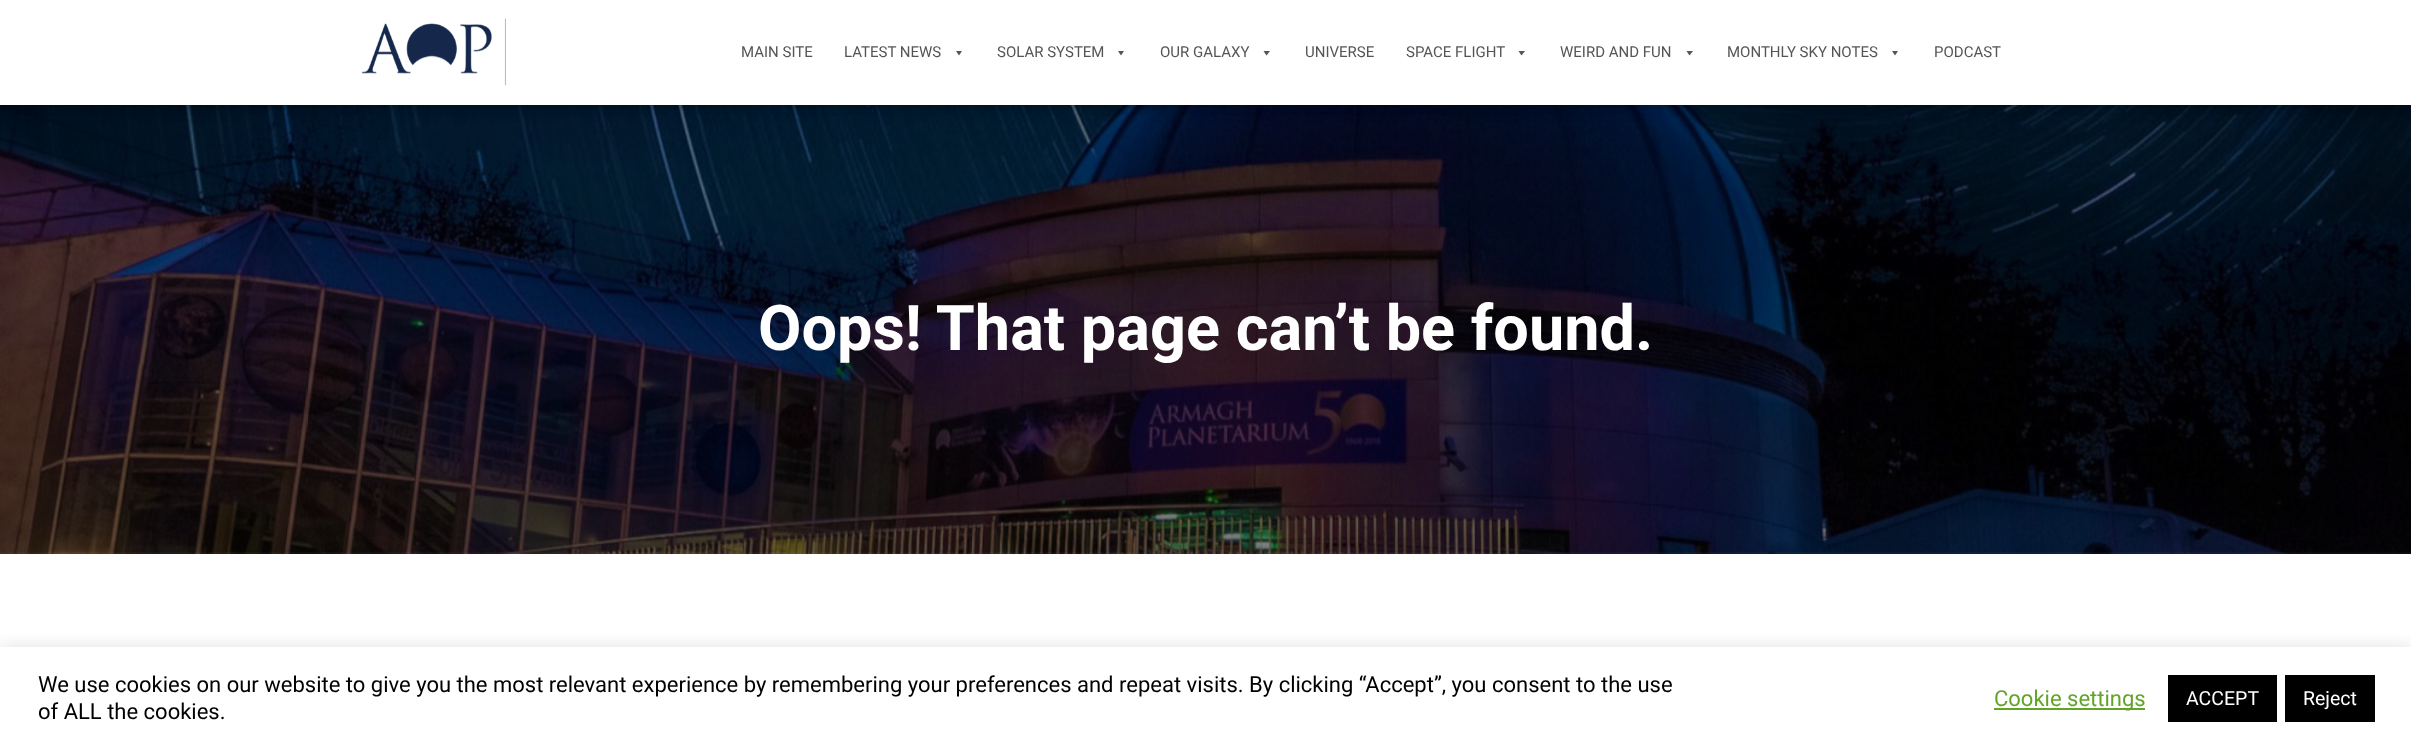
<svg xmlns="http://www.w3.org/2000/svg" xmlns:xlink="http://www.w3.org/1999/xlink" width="2411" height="749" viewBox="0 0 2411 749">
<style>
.cls-1{font:15px Roboto;fill:#555555}
.cls-2{font:bold 63px Roboto;fill:#ffffff}
.cls-3{font:22px Roboto;fill:#000000}
.cls-4{font:22px Roboto;fill:#62a329}
.cls-5{font:19.5px Roboto;fill:#ffffff}
</style>
<defs>
<clipPath id="clip1"><rect x="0" y="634" width="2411" height="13"/></clipPath>
</defs>
<rect width="100%" height="100%" fill="#ffffff"/>
<image xlink:href="image1.png" x="0" y="105" width="2411" height="449"/>
<rect fill="#000000" fill-opacity="0.1" filter="blur(4px)" x="3" y="9" width="2406" height="99"/>
<rect fill="#000000" fill-opacity="0.12" filter="blur(7.5px)" x="0" y="2" width="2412" height="105"/>
<rect fill="#000000" fill-opacity="0.42" filter="blur(7.5px)" x="9" y="11" width="2394" height="87"/>
<rect fill="#ffffff" x="0" y="0" width="2411" height="105"/>
<image xlink:href="image0.png" x="361" y="18" width="145" height="68"/>
<path fill="#555555" d="M962 51L959 55.5L956 51Z"/>
<path fill="#555555" d="M1124 51L1121 55.5L1118 51Z"/>
<path fill="#555555" d="M1270 51L1266.5 55.5L1263.5 51Z"/>
<path fill="#555555" d="M1525 51L1521.5 55.5L1518.5 51Z"/>
<path fill="#555555" d="M1693 51L1689.5 55.5L1686.5 51Z"/>
<path fill="#555555" d="M1898 51L1895 55.5L1892 51Z"/>
<g clip-path="url(#clip1)">
<rect fill="#acabab" fill-opacity="0.3" filter="blur(7.5px)" x="0" y="645" width="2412" height="104"/>
</g>
<rect fill="#62a329" x="1994" y="708" width="151" height="2"/>
<rect fill="#000000" x="2168" y="675" width="109" height="47"/>
<rect fill="#000000" x="2285" y="675" width="90" height="47"/>
<text class="cls-1" x="741" y="57">MAIN SITE</text>
<text class="cls-1" x="844" y="57">LATEST NEWS</text>
<text class="cls-1" x="997" y="57">SOLAR SYSTEM</text>
<text class="cls-1" x="1160" y="57">OUR GALAXY</text>
<text class="cls-1" x="1305" y="57">UNIVERSE</text>
<text class="cls-1" x="1406" y="57">SPACE FLIGHT</text>
<text class="cls-1" x="1560" y="57">WEIRD AND FUN</text>
<text class="cls-1" x="1727" y="57">MONTHLY SKY NOTES</text>
<text class="cls-1" x="1934" y="57">PODCAST</text>
<text class="cls-2" x="758" y="350">Oops! That page can’t be found.</text>
<text class="cls-3"><tspan x="38" y="692">We use cookies on our website to give you the most relevant experience by remembering your preferences and repeat visits. By clicking “Accept”, you consent to the use</tspan><tspan x="38" y="719">of ALL the cookies.</tspan></text>
<text class="cls-4" x="1994" y="706">Cookie settings</text>
<text class="cls-5" x="2186" y="705">ACCEPT</text>
<text class="cls-5" x="2303" y="705">Reject</text>
</svg>
